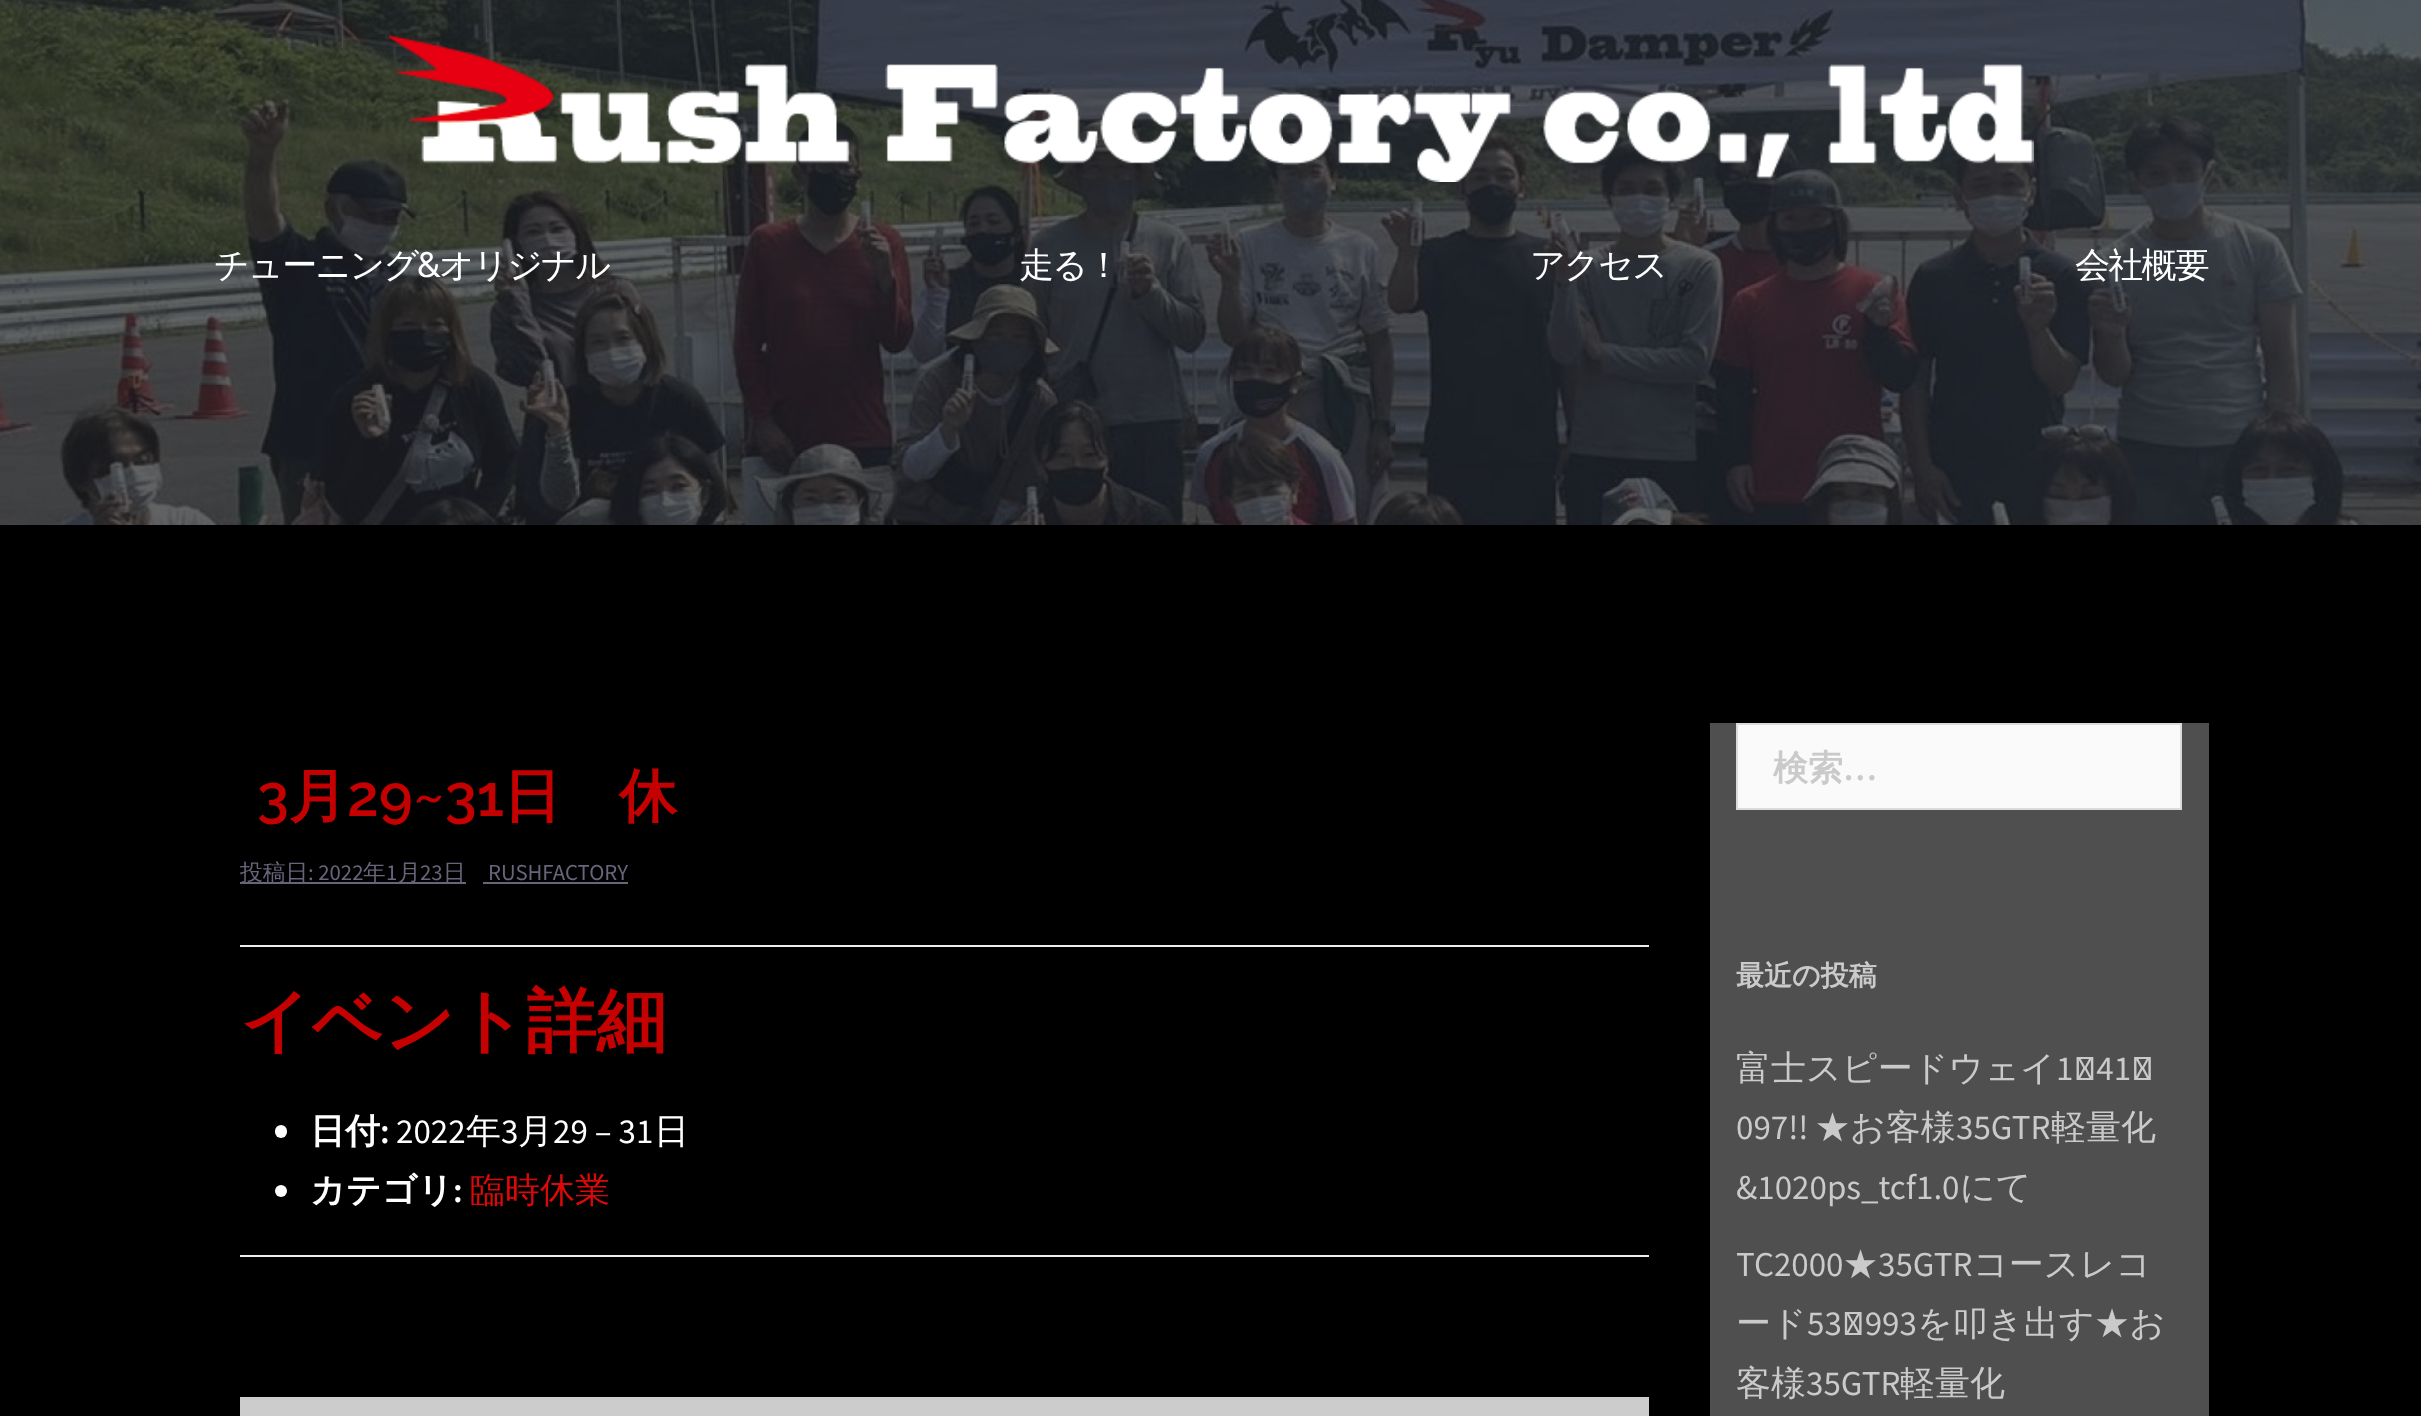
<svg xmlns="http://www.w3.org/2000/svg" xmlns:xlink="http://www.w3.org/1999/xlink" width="2421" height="1416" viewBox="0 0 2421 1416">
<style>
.cls-1{font:500 35px WenQuanYi Zen Hei;letter-spacing:-1.75px;fill:#ffffff}
.cls-2{font:500 35px Raleway;letter-spacing:-1.75px;fill:#ffffff}
.cls-3{font:600 58px Raleway;fill:#c50000}
.cls-4{font:bold 58px WenQuanYi Zen Hei;fill:#c50000}
.cls-5{font:500 22.75px WenQuanYi Zen Hei;fill:#68647a}
.cls-6{font:22.75px Source Sans Pro;fill:#68647a}
.cls-7{font:bold 70px WenQuanYi Zen Hei;fill:#c50000}
.cls-8{font:bold 35px WenQuanYi Zen Hei;fill:#ffffff}
.cls-9{font:600 35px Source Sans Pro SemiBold;fill:#ffffff}
.cls-10{font:35px Source Sans Pro;fill:#ffffff}
.cls-11{font:500 35px WenQuanYi Zen Hei;fill:#ffffff}
.cls-12{font:500 35px WenQuanYi Zen Hei;fill:#dd0808}
.cls-13{font:bold 35px WenQuanYi Zen Hei;fill:#cacaca}
.cls-14{font:600 35px Source Sans Pro SemiBold;fill:#cacaca}
.cls-15{font:bold 28px WenQuanYi Zen Hei;fill:#cacaca}
.cls-16{font:500 35px WenQuanYi Zen Hei;fill:#cacaca}
.cls-17{font:35px Source Sans Pro;fill:#cacaca}
</style>
<rect width="100%" height="100%" fill="#000000"/>
<image xlink:href="image0.png" x="0" y="0" width="2421" height="525"/>
<image xlink:href="image1.png" x="389" y="35" width="1645" height="147"/>
<rect fill="#68647a" x="240" y="882" width="226" height="2"/>
<rect fill="#68647a" x="483" y="882" width="145" height="2"/>
<rect fill="#eeeeee" x="240" y="945" width="1409" height="2"/>
<rect fill="#ffffff" x="275" y="1125" width="12" height="13" rx="6"/>
<circle fill="#ffffff" cx="281" cy="1191" r="6"/>
<rect fill="#eeeeee" x="240" y="1255" width="1409" height="2"/>
<rect fill="#cccccc" x="240" y="1397" width="1409" height="19"/>
<rect fill="#4f4f4f" x="1710" y="723" width="499" height="693"/>
<rect fill="#fafafa" stroke="#dbdbdb" stroke-width="2" x="1737" y="724" width="444" height="85"/>
<text class="cls-1" x="214" y="277">チューニング</text>
<text class="cls-2" x="417" y="277">&amp;</text>
<text class="cls-1" x="439" y="277">オリジナル</text>
<text class="cls-1" x="1019" y="277">走る！</text>
<text class="cls-1" x="1530" y="277">アクセス</text>
<text class="cls-1" x="2075" y="277">会社概要</text>
<text class="cls-3" x="257" y="816">3</text>
<text class="cls-4" x="289" y="816">月</text>
<text class="cls-3" x="347" y="816">29~31</text>
<text class="cls-4" x="503" y="816">日　休</text>
<text class="cls-5" x="240" y="880">投稿日</text>
<text class="cls-6" x="308" y="880">: 2022</text>
<text class="cls-5" x="363" y="880">年</text>
<text class="cls-6" x="386" y="880">1</text>
<text class="cls-5" x="398" y="880">月</text>
<text class="cls-6" x="420" y="880">23</text>
<text class="cls-5" x="443" y="880">日</text>
<text class="cls-6" x="488" y="880">RUSHFACTORY</text>
<text class="cls-7" x="240" y="1045">イベント詳細</text>
<text class="cls-8" x="310" y="1143">日付</text>
<text class="cls-9" x="380" y="1143">:</text>
<text class="cls-10" x="396" y="1143">2022</text>
<text class="cls-11" x="466" y="1143">年</text>
<text class="cls-10" x="501" y="1143">3</text>
<text class="cls-11" x="518" y="1143">月</text>
<text class="cls-10" x="553" y="1143">29 – 31</text>
<text class="cls-11" x="654" y="1143">日</text>
<text class="cls-8" x="310" y="1202">カテゴリ</text>
<text class="cls-9" x="453" y="1202">:</text>
<text class="cls-12" x="470" y="1202">臨時休業</text>
<text class="cls-13" x="1773" y="780">検索</text>
<text class="cls-14" x="1843" y="780">…</text>
<text class="cls-15" x="1736" y="985">最近の投稿</text>
<text class="cls-16" x="1736" y="1080">富士スピードウェイ</text>
<text class="cls-17" x="2056" y="1080">1ﾞ41ﾞ</text>
<text class="cls-17" x="1736" y="1139">097!!</text>
<text class="cls-16" x="1815" y="1139">★お客様</text>
<text class="cls-17" x="1956" y="1139">35GTR</text>
<text class="cls-16" x="2051" y="1139">軽量化</text>
<text class="cls-17" x="1736" y="1199">&amp;1020ps_tcf1.0</text>
<text class="cls-16" x="1960" y="1199">にて</text>
<text class="cls-17" x="1736" y="1276">TC2000</text>
<text class="cls-16" x="1843" y="1276">★</text>
<text class="cls-17" x="1878" y="1276">35GTR</text>
<text class="cls-16" x="1973" y="1276">コースレコ</text>
<text class="cls-16" x="1736" y="1335">ード</text>
<text class="cls-17" x="1807" y="1335">53ﾞ993</text>
<text class="cls-16" x="1917" y="1335">を叩き出す★お</text>
<text class="cls-16" x="1736" y="1395">客様</text>
<text class="cls-17" x="1806" y="1395">35GTR</text>
<text class="cls-16" x="1900" y="1395">軽量化</text>
</svg>
